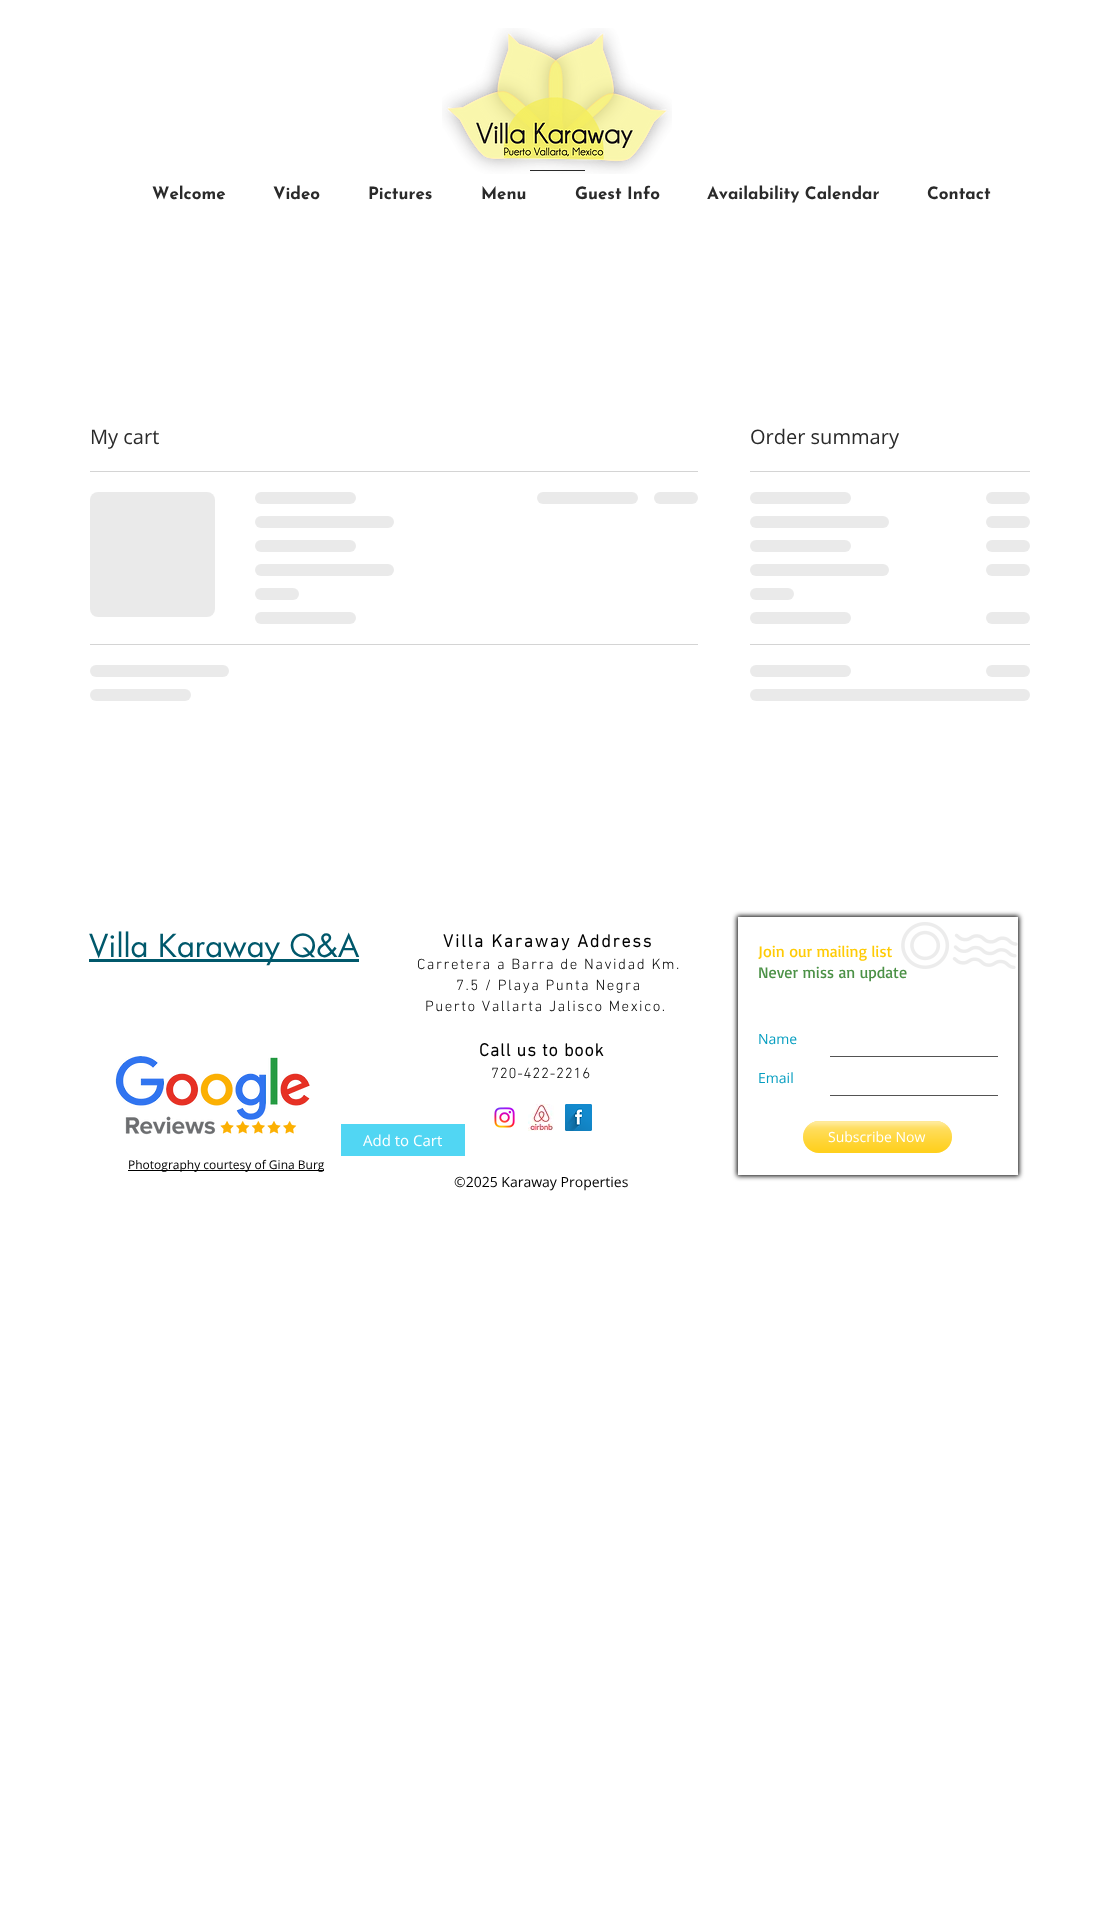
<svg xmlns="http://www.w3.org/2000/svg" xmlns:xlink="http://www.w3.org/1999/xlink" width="1119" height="1917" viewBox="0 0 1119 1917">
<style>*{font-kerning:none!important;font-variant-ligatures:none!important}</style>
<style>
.cls-1{font:100 17px Josefin Sans;fill:#2a2a2a}
.cls-2{font:20px Open Sans;fill:#2a2a2a}
.cls-3{font:31px futura;fill:#00586b}
.cls-4{font:bold 18px 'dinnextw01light';letter-spacing:1.8px;fill:#000000}
.cls-5{font:300 15px 'dinnextw01light';letter-spacing:1.5px;fill:#000000}
.cls-6{font:16px Basic;fill:#ffcb05}
.cls-7{font:16px Basic;fill:#4b9146}
.cls-8{font:14px Open Sans;fill:#069ec0}
.cls-9{font:14px Open Sans;fill:#ffffff}
.cls-10{font:bold 18px 'dinnextw01light';letter-spacing:0.9px;fill:#000000}
.cls-11{font:300 15px 'dinnextw01light';letter-spacing:0.75px;fill:#000000}
.cls-12{font:15px Open Sans;fill:#ffffff}
.cls-13{font:12px Open Sans;fill:#000000}
.cls-14{font:14px Open Sans;fill:#000000}
</style>
<defs>
<linearGradient id="g1" gradientUnits="userSpaceOnUse" x1="90" y1="555" x2="590" y2="555"><stop offset="0.25" stop-color="#eaeaea"/><stop offset="0.37" stop-color="#d4d4d4"/><stop offset="0.63" stop-color="#eaeaea"/></linearGradient>
<linearGradient id="g2" gradientUnits="userSpaceOnUse" x1="255" y1="498" x2="659" y2="498"><stop offset="0.25" stop-color="#eaeaea"/><stop offset="0.37" stop-color="#d4d4d4"/><stop offset="0.63" stop-color="#eaeaea"/></linearGradient>
<linearGradient id="g3" gradientUnits="userSpaceOnUse" x1="255" y1="522" x2="811" y2="522"><stop offset="0.25" stop-color="#eaeaea"/><stop offset="0.37" stop-color="#d4d4d4"/><stop offset="0.63" stop-color="#eaeaea"/></linearGradient>
<linearGradient id="g4" gradientUnits="userSpaceOnUse" x1="255" y1="546" x2="659" y2="546"><stop offset="0.25" stop-color="#eaeaea"/><stop offset="0.37" stop-color="#d4d4d4"/><stop offset="0.63" stop-color="#eaeaea"/></linearGradient>
<linearGradient id="g5" gradientUnits="userSpaceOnUse" x1="255" y1="570" x2="811" y2="570"><stop offset="0.25" stop-color="#eaeaea"/><stop offset="0.37" stop-color="#d4d4d4"/><stop offset="0.63" stop-color="#eaeaea"/></linearGradient>
<linearGradient id="g6" gradientUnits="userSpaceOnUse" x1="255" y1="594" x2="431" y2="594"><stop offset="0.25" stop-color="#eaeaea"/><stop offset="0.37" stop-color="#d4d4d4"/><stop offset="0.63" stop-color="#eaeaea"/></linearGradient>
<linearGradient id="g7" gradientUnits="userSpaceOnUse" x1="255" y1="618" x2="659" y2="618"><stop offset="0.25" stop-color="#eaeaea"/><stop offset="0.37" stop-color="#d4d4d4"/><stop offset="0.63" stop-color="#eaeaea"/></linearGradient>
<linearGradient id="g8" gradientUnits="userSpaceOnUse" x1="537" y1="498" x2="941" y2="498"><stop offset="0.25" stop-color="#eaeaea"/><stop offset="0.37" stop-color="#d4d4d4"/><stop offset="0.63" stop-color="#eaeaea"/></linearGradient>
<linearGradient id="g9" gradientUnits="userSpaceOnUse" x1="654" y1="498" x2="830" y2="498"><stop offset="0.25" stop-color="#eaeaea"/><stop offset="0.37" stop-color="#d4d4d4"/><stop offset="0.63" stop-color="#eaeaea"/></linearGradient>
<linearGradient id="g10" gradientUnits="userSpaceOnUse" x1="90" y1="671" x2="646" y2="671"><stop offset="0.25" stop-color="#eaeaea"/><stop offset="0.37" stop-color="#d4d4d4"/><stop offset="0.63" stop-color="#eaeaea"/></linearGradient>
<linearGradient id="g11" gradientUnits="userSpaceOnUse" x1="90" y1="695" x2="494" y2="695"><stop offset="0.25" stop-color="#eaeaea"/><stop offset="0.37" stop-color="#d4d4d4"/><stop offset="0.63" stop-color="#eaeaea"/></linearGradient>
<linearGradient id="g12" gradientUnits="userSpaceOnUse" x1="750" y1="498" x2="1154" y2="498"><stop offset="0.25" stop-color="#eaeaea"/><stop offset="0.37" stop-color="#d4d4d4"/><stop offset="0.63" stop-color="#eaeaea"/></linearGradient>
<linearGradient id="g13" gradientUnits="userSpaceOnUse" x1="986" y1="498" x2="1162" y2="498"><stop offset="0.25" stop-color="#eaeaea"/><stop offset="0.37" stop-color="#d4d4d4"/><stop offset="0.63" stop-color="#eaeaea"/></linearGradient>
<linearGradient id="g14" gradientUnits="userSpaceOnUse" x1="750" y1="522" x2="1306" y2="522"><stop offset="0.25" stop-color="#eaeaea"/><stop offset="0.37" stop-color="#d4d4d4"/><stop offset="0.63" stop-color="#eaeaea"/></linearGradient>
<linearGradient id="g15" gradientUnits="userSpaceOnUse" x1="986" y1="522" x2="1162" y2="522"><stop offset="0.25" stop-color="#eaeaea"/><stop offset="0.37" stop-color="#d4d4d4"/><stop offset="0.63" stop-color="#eaeaea"/></linearGradient>
<linearGradient id="g16" gradientUnits="userSpaceOnUse" x1="750" y1="546" x2="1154" y2="546"><stop offset="0.25" stop-color="#eaeaea"/><stop offset="0.37" stop-color="#d4d4d4"/><stop offset="0.63" stop-color="#eaeaea"/></linearGradient>
<linearGradient id="g17" gradientUnits="userSpaceOnUse" x1="986" y1="546" x2="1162" y2="546"><stop offset="0.25" stop-color="#eaeaea"/><stop offset="0.37" stop-color="#d4d4d4"/><stop offset="0.63" stop-color="#eaeaea"/></linearGradient>
<linearGradient id="g18" gradientUnits="userSpaceOnUse" x1="750" y1="570" x2="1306" y2="570"><stop offset="0.25" stop-color="#eaeaea"/><stop offset="0.37" stop-color="#d4d4d4"/><stop offset="0.63" stop-color="#eaeaea"/></linearGradient>
<linearGradient id="g19" gradientUnits="userSpaceOnUse" x1="986" y1="570" x2="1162" y2="570"><stop offset="0.25" stop-color="#eaeaea"/><stop offset="0.37" stop-color="#d4d4d4"/><stop offset="0.63" stop-color="#eaeaea"/></linearGradient>
<linearGradient id="g20" gradientUnits="userSpaceOnUse" x1="750" y1="594" x2="926" y2="594"><stop offset="0.25" stop-color="#eaeaea"/><stop offset="0.37" stop-color="#d4d4d4"/><stop offset="0.63" stop-color="#eaeaea"/></linearGradient>
<linearGradient id="g21" gradientUnits="userSpaceOnUse" x1="750" y1="618" x2="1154" y2="618"><stop offset="0.25" stop-color="#eaeaea"/><stop offset="0.37" stop-color="#d4d4d4"/><stop offset="0.63" stop-color="#eaeaea"/></linearGradient>
<linearGradient id="g22" gradientUnits="userSpaceOnUse" x1="986" y1="618" x2="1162" y2="618"><stop offset="0.25" stop-color="#eaeaea"/><stop offset="0.37" stop-color="#d4d4d4"/><stop offset="0.63" stop-color="#eaeaea"/></linearGradient>
<linearGradient id="g23" gradientUnits="userSpaceOnUse" x1="750" y1="671" x2="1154" y2="671"><stop offset="0.25" stop-color="#eaeaea"/><stop offset="0.37" stop-color="#d4d4d4"/><stop offset="0.63" stop-color="#eaeaea"/></linearGradient>
<linearGradient id="g24" gradientUnits="userSpaceOnUse" x1="986" y1="671" x2="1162" y2="671"><stop offset="0.25" stop-color="#eaeaea"/><stop offset="0.37" stop-color="#d4d4d4"/><stop offset="0.63" stop-color="#eaeaea"/></linearGradient>
<linearGradient id="g25" gradientUnits="userSpaceOnUse" x1="750" y1="695" x2="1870" y2="695"><stop offset="0.25" stop-color="#eaeaea"/><stop offset="0.37" stop-color="#d4d4d4"/><stop offset="0.63" stop-color="#eaeaea"/></linearGradient>
<clipPath id="clip1"><path d="M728 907H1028V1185H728ZM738 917H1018V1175H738Z" clip-rule="evenodd"/></clipPath>
</defs>
<rect width="100%" height="100%" fill="#ffffff"/>
<image xlink:href="image0.png" x="442" y="28" width="230" height="146"/>
<rect fill="#2a2a2a" x="530" y="170" width="55" height="1"/>
<rect fill="#d4d4d4" x="90" y="471" width="608" height="1"/>
<rect fill="url(#g1)" x="90" y="492" width="125" height="125" rx="8"/>
<rect fill="url(#g2)" x="255" y="492" width="101" height="12" rx="6"/>
<rect fill="url(#g3)" x="255" y="516" width="139" height="12" rx="6"/>
<rect fill="url(#g4)" x="255" y="540" width="101" height="12" rx="6"/>
<rect fill="url(#g5)" x="255" y="564" width="139" height="12" rx="6"/>
<rect fill="url(#g6)" x="255" y="588" width="44" height="12" rx="6"/>
<rect fill="url(#g7)" x="255" y="612" width="101" height="12" rx="6"/>
<rect fill="url(#g8)" x="537" y="492" width="101" height="12" rx="6"/>
<rect fill="url(#g9)" x="654" y="492" width="44" height="12" rx="6"/>
<rect fill="#d4d4d4" x="90" y="644" width="608" height="1"/>
<rect fill="url(#g10)" x="90" y="665" width="139" height="12" rx="6"/>
<rect fill="url(#g11)" x="90" y="689" width="101" height="12" rx="6"/>
<rect fill="#d4d4d4" x="750" y="471" width="280" height="1"/>
<rect fill="url(#g12)" x="750" y="492" width="101" height="12" rx="6"/>
<rect fill="url(#g13)" x="986" y="492" width="44" height="12" rx="6"/>
<rect fill="url(#g14)" x="750" y="516" width="139" height="12" rx="6"/>
<rect fill="url(#g15)" x="986" y="516" width="44" height="12" rx="6"/>
<rect fill="url(#g16)" x="750" y="540" width="101" height="12" rx="6"/>
<rect fill="url(#g17)" x="986" y="540" width="44" height="12" rx="6"/>
<rect fill="url(#g18)" x="750" y="564" width="139" height="12" rx="6"/>
<rect fill="url(#g19)" x="986" y="564" width="44" height="12" rx="6"/>
<rect fill="url(#g20)" x="750" y="588" width="44" height="12" rx="6"/>
<rect fill="url(#g21)" x="750" y="612" width="101" height="12" rx="6"/>
<rect fill="url(#g22)" x="986" y="612" width="44" height="12" rx="6"/>
<rect fill="#d4d4d4" x="750" y="644" width="280" height="1"/>
<rect fill="url(#g23)" x="750" y="665" width="101" height="12" rx="6"/>
<rect fill="url(#g24)" x="986" y="665" width="44" height="12" rx="6"/>
<rect fill="url(#g25)" x="750" y="689" width="280" height="12" rx="6"/>
<rect fill="#00586b" x="89" y="959" width="270" height="3"/>
<g clip-path="url(#clip1)">
<rect fill="#000000" filter="blur(2.5px)" x="737" y="916" width="282" height="260"/>
</g>
<image xlink:href="image1.png" x="901" y="922" width="117" height="47"/>
<rect fill="#545454" x="830" y="1056" width="168" height="1"/>
<rect fill="#545454" x="830" y="1095" width="168" height="1"/>
<rect fill="#ffcb05" x="803" y="1121" width="149" height="32" rx="16"/>
<image xlink:href="image2.png" x="803" y="1121" width="149" height="32"/>
<image xlink:href="image3.png" x="115" y="1056" width="195" height="79"/>
<image xlink:href="image4.png" x="494" y="1107" width="21" height="21"/>
<image xlink:href="image5.png" x="528" y="1104" width="26" height="27"/>
<image xlink:href="image6.png" x="565" y="1104" width="27" height="27"/>
<rect fill="#51d6f3" x="341" y="1124" width="124" height="32"/>
<rect fill="#000000" x="128" y="1170" width="196" height="1"/>
<text class="cls-1" x="152" y="199">Welcome</text>
<text class="cls-1" x="273" y="199">Video</text>
<text class="cls-1" x="368" y="199">Pictures</text>
<text class="cls-1" x="481" y="199">Menu</text>
<text class="cls-1" x="575" y="199">Guest Info</text>
<text class="cls-1" x="707" y="199">Availability Calendar</text>
<text class="cls-1" x="927" y="199">Contact</text>
<text class="cls-2" x="90" y="444">My cart</text>
<text class="cls-2" x="750" y="444">Order summary</text>
<text class="cls-3" x="89" y="957">Villa Karaway Q&amp;A</text>
<text class="cls-4" x="443" y="947">Villa Karaway Address</text>
<text class="cls-5" x="417" y="969">Carretera a Barra de Navidad Km.</text>
<text class="cls-5" x="456" y="990">7.5 / Playa Punta Negra</text>
<text class="cls-5" x="425" y="1011">Puerto Vallarta Jalisco Mexico.</text>
<text class="cls-6" x="758" y="957">Join our mailing list</text>
<text class="cls-7" x="758" y="978">Never miss an update</text>
<text class="cls-8" x="758" y="1044">Name</text>
<text class="cls-8" x="758" y="1083">Email</text>
<text class="cls-9" x="828" y="1142">Subscribe Now</text>
<text class="cls-10" x="479" y="1056">Call us to book</text>
<text class="cls-11" x="491" y="1078">720-422-2216</text>
<text class="cls-12" x="363" y="1146">Add to Cart</text>
<text class="cls-13" x="128" y="1169">Photography courtesy of Gina Burg</text>
<text class="cls-14" x="454" y="1187">©2025 Karaway Properties</text>
</svg>
